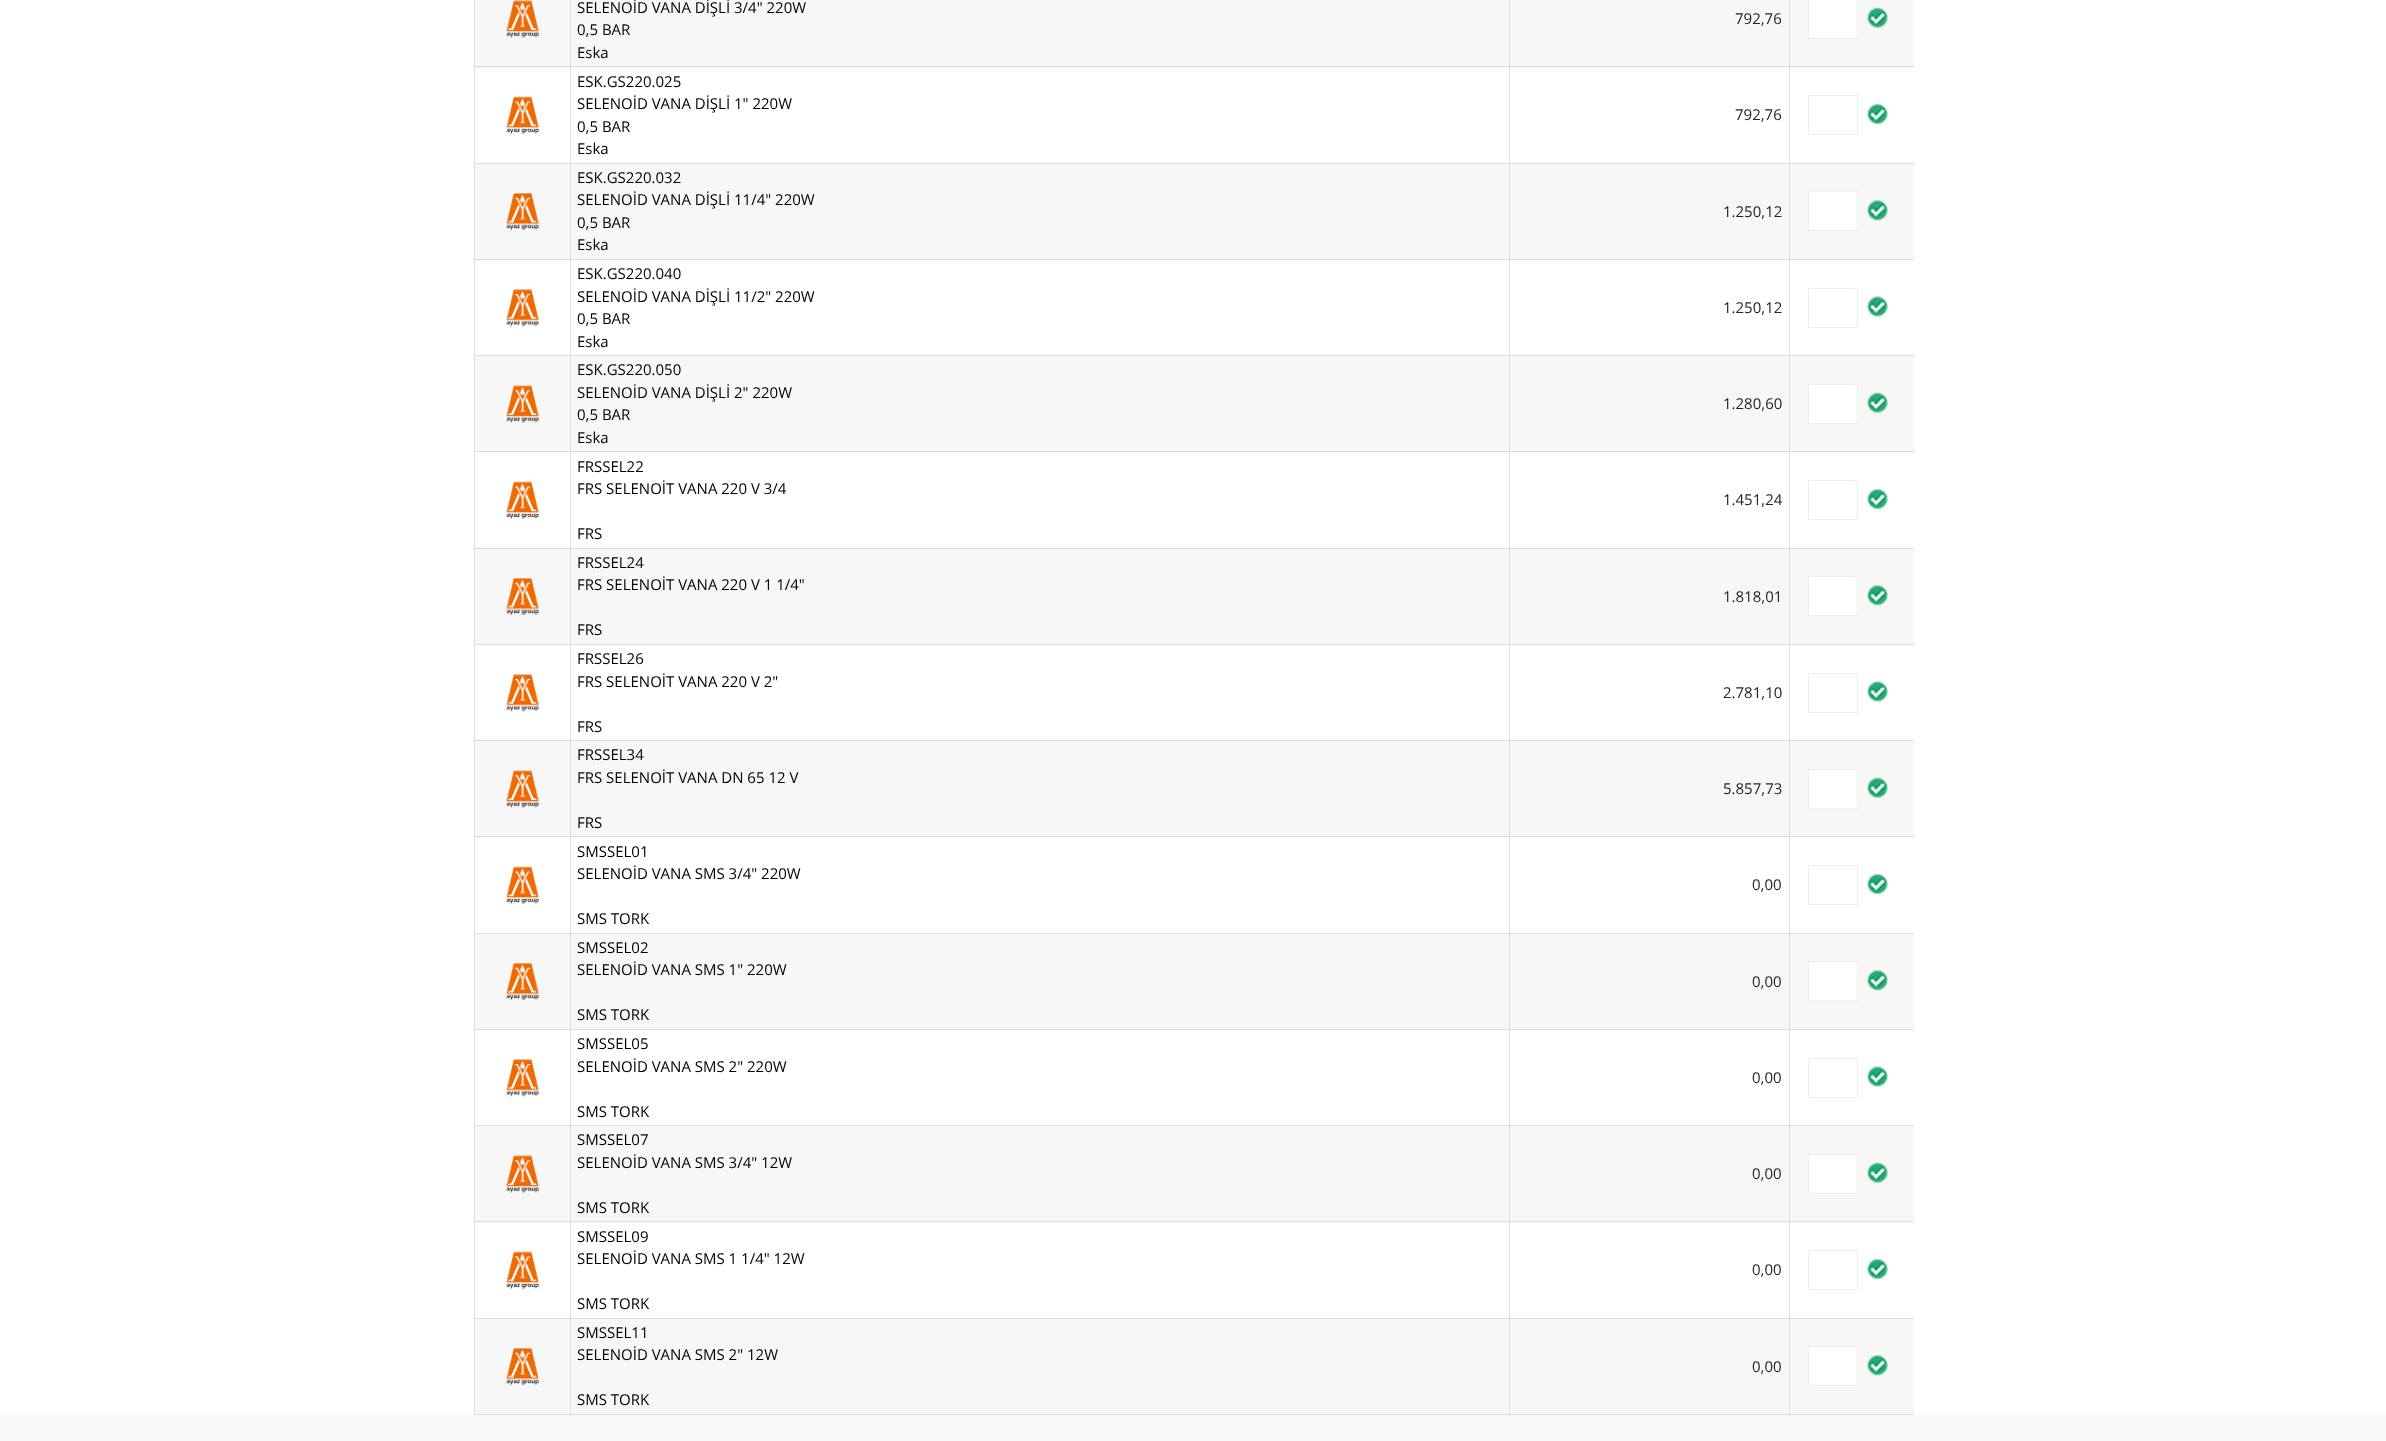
<svg xmlns="http://www.w3.org/2000/svg" xmlns:xlink="http://www.w3.org/1999/xlink" width="2386" height="1441" viewBox="0 0 2386 1441">
<style>
.cls-1{font:15px Open Sans;fill:#000000}
.cls-2{font:15px Open Sans;fill:#252324}
</style>
<rect width="100%" height="100%" fill="#ffffff"/>
<rect fill="#f7f7f7" x="475" y="0" width="95" height="68"/>
<rect fill="#dddddd" x="474" y="66" width="96" height="1"/>
<rect fill="#dddddd" x="474" y="0" width="1" height="68"/>
<image xlink:href="image0.png" x="506" y="0" width="33" height="38"/>
<rect fill="#f7f7f7" x="571" y="0" width="938" height="68"/>
<rect fill="#dddddd" x="570" y="66" width="939" height="1"/>
<rect fill="#dddddd" x="570" y="0" width="1" height="68"/>
<rect fill="#f7f7f7" x="1510" y="0" width="279" height="68"/>
<rect fill="#dddddd" x="1509" y="66" width="280" height="1"/>
<rect fill="#dddddd" x="1509" y="0" width="1" height="68"/>
<rect fill="#f7f7f7" x="1790" y="0" width="124" height="68"/>
<rect fill="#dddddd" x="1789" y="66" width="125" height="1"/>
<rect fill="#dddddd" x="1789" y="0" width="1" height="68"/>
<rect fill="#ffffff" stroke="#eeeeee" x="1808.5" y="-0.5" width="49" height="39"/>
<image xlink:href="image1.png" x="1867" y="7" width="21" height="21"/>
<rect fill="#dddddd" x="474" y="163" width="1440" height="1"/>
<rect fill="#dddddd" x="474" y="68" width="1" height="96"/>
<image xlink:href="image2.png" x="506" y="96" width="33" height="38"/>
<rect fill="#dddddd" x="570" y="68" width="1" height="96"/>
<rect fill="#dddddd" x="1509" y="68" width="1" height="96"/>
<rect fill="#dddddd" x="1789" y="68" width="1" height="96"/>
<rect fill="none" stroke="#eeeeee" x="1808.5" y="95.5" width="49" height="39"/>
<image xlink:href="image3.png" x="1867" y="103" width="21" height="22"/>
<rect fill="#f7f7f7" x="475" y="164" width="95" height="95"/>
<rect fill="#dddddd" x="474" y="259" width="1440" height="1"/>
<rect fill="#dddddd" x="474" y="164" width="1" height="96"/>
<image xlink:href="image4.png" x="506" y="193" width="33" height="37"/>
<rect fill="#f7f7f7" x="571" y="164" width="938" height="95"/>
<rect fill="#dddddd" x="570" y="164" width="1" height="96"/>
<rect fill="#f7f7f7" x="1510" y="164" width="279" height="95"/>
<rect fill="#dddddd" x="1509" y="164" width="1" height="96"/>
<rect fill="#f7f7f7" x="1790" y="164" width="124" height="95"/>
<rect fill="#dddddd" x="1789" y="164" width="1" height="96"/>
<rect fill="#ffffff" stroke="#eeeeee" x="1808.5" y="191.5" width="49" height="39"/>
<image xlink:href="image5.png" x="1867" y="200" width="21" height="21"/>
<rect fill="#dddddd" x="474" y="355" width="1440" height="1"/>
<rect fill="#dddddd" x="474" y="260" width="1" height="96"/>
<image xlink:href="image6.png" x="506" y="289" width="33" height="38"/>
<rect fill="#dddddd" x="570" y="260" width="1" height="96"/>
<rect fill="#dddddd" x="1509" y="260" width="1" height="96"/>
<rect fill="#dddddd" x="1789" y="260" width="1" height="96"/>
<rect fill="none" stroke="#eeeeee" x="1808.5" y="288.5" width="49" height="39"/>
<image xlink:href="image7.png" x="1867" y="296" width="21" height="21"/>
<rect fill="#f7f7f7" x="475" y="356" width="95" height="97"/>
<rect fill="#dddddd" x="474" y="451" width="96" height="1"/>
<rect fill="#dddddd" x="474" y="356" width="1" height="97"/>
<image xlink:href="image0.png" x="506" y="385" width="33" height="38"/>
<rect fill="#f7f7f7" x="571" y="356" width="938" height="97"/>
<rect fill="#dddddd" x="570" y="451" width="939" height="1"/>
<rect fill="#dddddd" x="570" y="356" width="1" height="97"/>
<rect fill="#f7f7f7" x="1510" y="356" width="279" height="97"/>
<rect fill="#dddddd" x="1509" y="451" width="280" height="1"/>
<rect fill="#dddddd" x="1509" y="356" width="1" height="97"/>
<rect fill="#f7f7f7" x="1790" y="356" width="124" height="97"/>
<rect fill="#dddddd" x="1789" y="451" width="125" height="1"/>
<rect fill="#dddddd" x="1789" y="356" width="1" height="97"/>
<rect fill="#ffffff" stroke="#eeeeee" x="1808.5" y="384.5" width="49" height="39"/>
<image xlink:href="image1.png" x="1867" y="392" width="21" height="21"/>
<rect fill="#dddddd" x="474" y="548" width="1440" height="1"/>
<rect fill="#dddddd" x="474" y="453" width="1" height="96"/>
<image xlink:href="image2.png" x="506" y="481" width="33" height="38"/>
<rect fill="#dddddd" x="570" y="453" width="1" height="96"/>
<rect fill="#dddddd" x="1509" y="453" width="1" height="96"/>
<rect fill="#dddddd" x="1789" y="453" width="1" height="96"/>
<rect fill="none" stroke="#eeeeee" x="1808.5" y="480.5" width="49" height="39"/>
<image xlink:href="image8.png" x="1867" y="488" width="21" height="22"/>
<rect fill="#f7f7f7" x="475" y="549" width="95" height="95"/>
<rect fill="#dddddd" x="474" y="644" width="1440" height="1"/>
<rect fill="#dddddd" x="474" y="549" width="1" height="96"/>
<image xlink:href="image4.png" x="506" y="578" width="33" height="37"/>
<rect fill="#f7f7f7" x="571" y="549" width="938" height="95"/>
<rect fill="#dddddd" x="570" y="549" width="1" height="96"/>
<rect fill="#f7f7f7" x="1510" y="549" width="279" height="95"/>
<rect fill="#dddddd" x="1509" y="549" width="1" height="96"/>
<rect fill="#f7f7f7" x="1790" y="549" width="124" height="95"/>
<rect fill="#dddddd" x="1789" y="549" width="1" height="96"/>
<rect fill="#ffffff" stroke="#eeeeee" x="1808.5" y="576.5" width="49" height="39"/>
<image xlink:href="image5.png" x="1867" y="585" width="21" height="21"/>
<rect fill="#dddddd" x="474" y="740" width="1440" height="1"/>
<rect fill="#dddddd" x="474" y="645" width="1" height="96"/>
<image xlink:href="image6.png" x="506" y="674" width="33" height="38"/>
<rect fill="#dddddd" x="570" y="645" width="1" height="96"/>
<rect fill="#dddddd" x="1509" y="645" width="1" height="96"/>
<rect fill="#dddddd" x="1789" y="645" width="1" height="96"/>
<rect fill="none" stroke="#eeeeee" x="1808.5" y="673.5" width="49" height="39"/>
<image xlink:href="image7.png" x="1867" y="681" width="21" height="21"/>
<rect fill="#f7f7f7" x="475" y="741" width="95" height="97"/>
<rect fill="#dddddd" x="474" y="836" width="96" height="1"/>
<rect fill="#dddddd" x="474" y="741" width="1" height="97"/>
<image xlink:href="image0.png" x="506" y="770" width="33" height="38"/>
<rect fill="#f7f7f7" x="571" y="741" width="938" height="97"/>
<rect fill="#dddddd" x="570" y="836" width="939" height="1"/>
<rect fill="#dddddd" x="570" y="741" width="1" height="97"/>
<rect fill="#f7f7f7" x="1510" y="741" width="279" height="97"/>
<rect fill="#dddddd" x="1509" y="836" width="280" height="1"/>
<rect fill="#dddddd" x="1509" y="741" width="1" height="97"/>
<rect fill="#f7f7f7" x="1790" y="741" width="124" height="97"/>
<rect fill="#dddddd" x="1789" y="836" width="125" height="1"/>
<rect fill="#dddddd" x="1789" y="741" width="1" height="97"/>
<rect fill="#ffffff" stroke="#eeeeee" x="1808.5" y="769.5" width="49" height="39"/>
<image xlink:href="image9.png" x="1867" y="777" width="21" height="21"/>
<rect fill="#dddddd" x="474" y="933" width="1440" height="1"/>
<rect fill="#dddddd" x="474" y="838" width="1" height="96"/>
<image xlink:href="image2.png" x="506" y="866" width="33" height="38"/>
<rect fill="#dddddd" x="570" y="838" width="1" height="96"/>
<rect fill="#dddddd" x="1509" y="838" width="1" height="96"/>
<rect fill="#dddddd" x="1789" y="838" width="1" height="96"/>
<rect fill="none" stroke="#eeeeee" x="1808.5" y="865.5" width="49" height="39"/>
<image xlink:href="image10.png" x="1867" y="873" width="21" height="22"/>
<rect fill="#f7f7f7" x="475" y="934" width="95" height="95"/>
<rect fill="#dddddd" x="474" y="1029" width="1440" height="1"/>
<rect fill="#dddddd" x="474" y="934" width="1" height="96"/>
<image xlink:href="image4.png" x="506" y="963" width="33" height="37"/>
<rect fill="#f7f7f7" x="571" y="934" width="938" height="95"/>
<rect fill="#dddddd" x="570" y="934" width="1" height="96"/>
<rect fill="#f7f7f7" x="1510" y="934" width="279" height="95"/>
<rect fill="#dddddd" x="1509" y="934" width="1" height="96"/>
<rect fill="#f7f7f7" x="1790" y="934" width="124" height="95"/>
<rect fill="#dddddd" x="1789" y="934" width="1" height="96"/>
<rect fill="#ffffff" stroke="#eeeeee" x="1808.5" y="961.5" width="49" height="39"/>
<image xlink:href="image5.png" x="1867" y="970" width="21" height="21"/>
<rect fill="#dddddd" x="474" y="1125" width="1440" height="1"/>
<rect fill="#dddddd" x="474" y="1030" width="1" height="96"/>
<image xlink:href="image6.png" x="506" y="1059" width="33" height="38"/>
<rect fill="#dddddd" x="570" y="1030" width="1" height="96"/>
<rect fill="#dddddd" x="1509" y="1030" width="1" height="96"/>
<rect fill="#dddddd" x="1789" y="1030" width="1" height="96"/>
<rect fill="none" stroke="#eeeeee" x="1808.5" y="1058.5" width="49" height="39"/>
<image xlink:href="image7.png" x="1867" y="1066" width="21" height="21"/>
<rect fill="#f7f7f7" x="475" y="1126" width="95" height="97"/>
<rect fill="#dddddd" x="474" y="1221" width="96" height="1"/>
<rect fill="#dddddd" x="474" y="1126" width="1" height="97"/>
<image xlink:href="image0.png" x="506" y="1155" width="33" height="38"/>
<rect fill="#f7f7f7" x="571" y="1126" width="938" height="97"/>
<rect fill="#dddddd" x="570" y="1221" width="939" height="1"/>
<rect fill="#dddddd" x="570" y="1126" width="1" height="97"/>
<rect fill="#f7f7f7" x="1510" y="1126" width="279" height="97"/>
<rect fill="#dddddd" x="1509" y="1221" width="280" height="1"/>
<rect fill="#dddddd" x="1509" y="1126" width="1" height="97"/>
<rect fill="#f7f7f7" x="1790" y="1126" width="124" height="97"/>
<rect fill="#dddddd" x="1789" y="1221" width="125" height="1"/>
<rect fill="#dddddd" x="1789" y="1126" width="1" height="97"/>
<rect fill="#ffffff" stroke="#eeeeee" x="1808.5" y="1154.5" width="49" height="39"/>
<image xlink:href="image1.png" x="1867" y="1162" width="21" height="21"/>
<rect fill="#dddddd" x="474" y="1318" width="1440" height="1"/>
<rect fill="#dddddd" x="474" y="1223" width="1" height="96"/>
<image xlink:href="image2.png" x="506" y="1251" width="33" height="38"/>
<rect fill="#dddddd" x="570" y="1223" width="1" height="96"/>
<rect fill="#dddddd" x="1509" y="1223" width="1" height="96"/>
<rect fill="#dddddd" x="1789" y="1223" width="1" height="96"/>
<rect fill="none" stroke="#eeeeee" x="1808.5" y="1250.5" width="49" height="39"/>
<image xlink:href="image10.png" x="1867" y="1258" width="21" height="22"/>
<rect fill="#f7f7f7" x="475" y="1319" width="95" height="95"/>
<rect fill="#dddddd" x="474" y="1414" width="1440" height="1"/>
<rect fill="#dddddd" x="474" y="1319" width="1" height="96"/>
<image xlink:href="image11.png" x="506" y="1348" width="33" height="38"/>
<rect fill="#f7f7f7" x="571" y="1319" width="938" height="95"/>
<rect fill="#dddddd" x="570" y="1319" width="1" height="96"/>
<rect fill="#f7f7f7" x="1510" y="1319" width="279" height="95"/>
<rect fill="#dddddd" x="1509" y="1319" width="1" height="96"/>
<rect fill="#f7f7f7" x="1790" y="1319" width="124" height="95"/>
<rect fill="#dddddd" x="1789" y="1319" width="1" height="96"/>
<rect fill="#ffffff" stroke="#eeeeee" x="1808.5" y="1346.5" width="49" height="39"/>
<image xlink:href="image5.png" x="1867" y="1355" width="21" height="21"/>
<rect fill="#f9f9f9" x="0" y="1415" width="2386" height="26"/>
<text class="cls-1"><tspan x="577" y="13">SELENOİD VANA DİŞLİ 3/4" 220W</tspan><tspan x="577" y="35">0,5 BAR</tspan><tspan x="577" y="58">Eska</tspan></text>
<text class="cls-2" x="1735" y="24">792,76</text>
<text class="cls-1"><tspan x="577" y="87">ESK.GS220.025</tspan><tspan x="577" y="109">SELENOİD VANA DİŞLİ 1" 220W</tspan><tspan x="577" y="132">0,5 BAR</tspan><tspan x="577" y="154">Eska</tspan></text>
<text class="cls-2" x="1735" y="120">792,76</text>
<text class="cls-1"><tspan x="577" y="183">ESK.GS220.032</tspan><tspan x="577" y="205">SELENOİD VANA DİŞLİ 11/4" 220W</tspan><tspan x="577" y="228">0,5 BAR</tspan><tspan x="577" y="250">Eska</tspan></text>
<text class="cls-2" x="1723" y="217">1.250,12</text>
<text class="cls-1"><tspan x="577" y="279">ESK.GS220.040</tspan><tspan x="577" y="302">SELENOİD VANA DİŞLİ 11/2" 220W</tspan><tspan x="577" y="324">0,5 BAR</tspan><tspan x="577" y="347">Eska</tspan></text>
<text class="cls-2" x="1723" y="313">1.250,12</text>
<text class="cls-1"><tspan x="577" y="375">ESK.GS220.050</tspan><tspan x="577" y="398">SELENOİD VANA DİŞLİ 2" 220W</tspan><tspan x="577" y="420">0,5 BAR</tspan><tspan x="577" y="443">Eska</tspan></text>
<text class="cls-2" x="1723" y="409">1.280,60</text>
<text class="cls-1"><tspan x="577" y="472">FRSSEL22</tspan><tspan x="577" y="494">FRS SELENOİT VANA 220 V 3/4</tspan></text>
<text class="cls-1" x="577" y="539">FRS</text>
<text class="cls-2" x="1723" y="505">1.451,24</text>
<text class="cls-1"><tspan x="577" y="568">FRSSEL24</tspan><tspan x="577" y="590">FRS SELENOİT VANA 220 V 1 1/4"</tspan></text>
<text class="cls-1" x="577" y="635">FRS</text>
<text class="cls-2" x="1723" y="602">1.818,01</text>
<text class="cls-1"><tspan x="577" y="664">FRSSEL26</tspan><tspan x="577" y="687">FRS SELENOİT VANA 220 V 2"</tspan></text>
<text class="cls-1" x="577" y="732">FRS</text>
<text class="cls-2" x="1723" y="698">2.781,10</text>
<text class="cls-1"><tspan x="577" y="760">FRSSEL34</tspan><tspan x="577" y="783">FRS SELENOİT VANA DN 65 12 V</tspan></text>
<text class="cls-1" x="577" y="828">FRS</text>
<text class="cls-2" x="1723" y="794">5.857,73</text>
<text class="cls-1"><tspan x="577" y="857">SMSSEL01</tspan><tspan x="577" y="879">SELENOİD VANA SMS 3/4" 220W</tspan></text>
<text class="cls-1" x="577" y="924">SMS TORK</text>
<text class="cls-2" x="1752" y="890">0,00</text>
<text class="cls-1"><tspan x="577" y="953">SMSSEL02</tspan><tspan x="577" y="975">SELENOİD VANA SMS 1" 220W</tspan></text>
<text class="cls-1" x="577" y="1020">SMS TORK</text>
<text class="cls-2" x="1752" y="987">0,00</text>
<text class="cls-1"><tspan x="577" y="1049">SMSSEL05</tspan><tspan x="577" y="1072">SELENOİD VANA SMS 2" 220W</tspan></text>
<text class="cls-1" x="577" y="1117">SMS TORK</text>
<text class="cls-2" x="1752" y="1083">0,00</text>
<text class="cls-1"><tspan x="577" y="1145">SMSSEL07</tspan><tspan x="577" y="1168">SELENOİD VANA SMS 3/4" 12W</tspan></text>
<text class="cls-1" x="577" y="1213">SMS TORK</text>
<text class="cls-2" x="1752" y="1179">0,00</text>
<text class="cls-1"><tspan x="577" y="1242">SMSSEL09</tspan><tspan x="577" y="1264">SELENOİD VANA SMS 1 1/4" 12W</tspan></text>
<text class="cls-1" x="577" y="1309">SMS TORK</text>
<text class="cls-2" x="1752" y="1275">0,00</text>
<text class="cls-1"><tspan x="577" y="1338">SMSSEL11</tspan><tspan x="577" y="1360">SELENOİD VANA SMS 2" 12W</tspan></text>
<text class="cls-1" x="577" y="1405">SMS TORK</text>
<text class="cls-2" x="1752" y="1372">0,00</text>
</svg>
